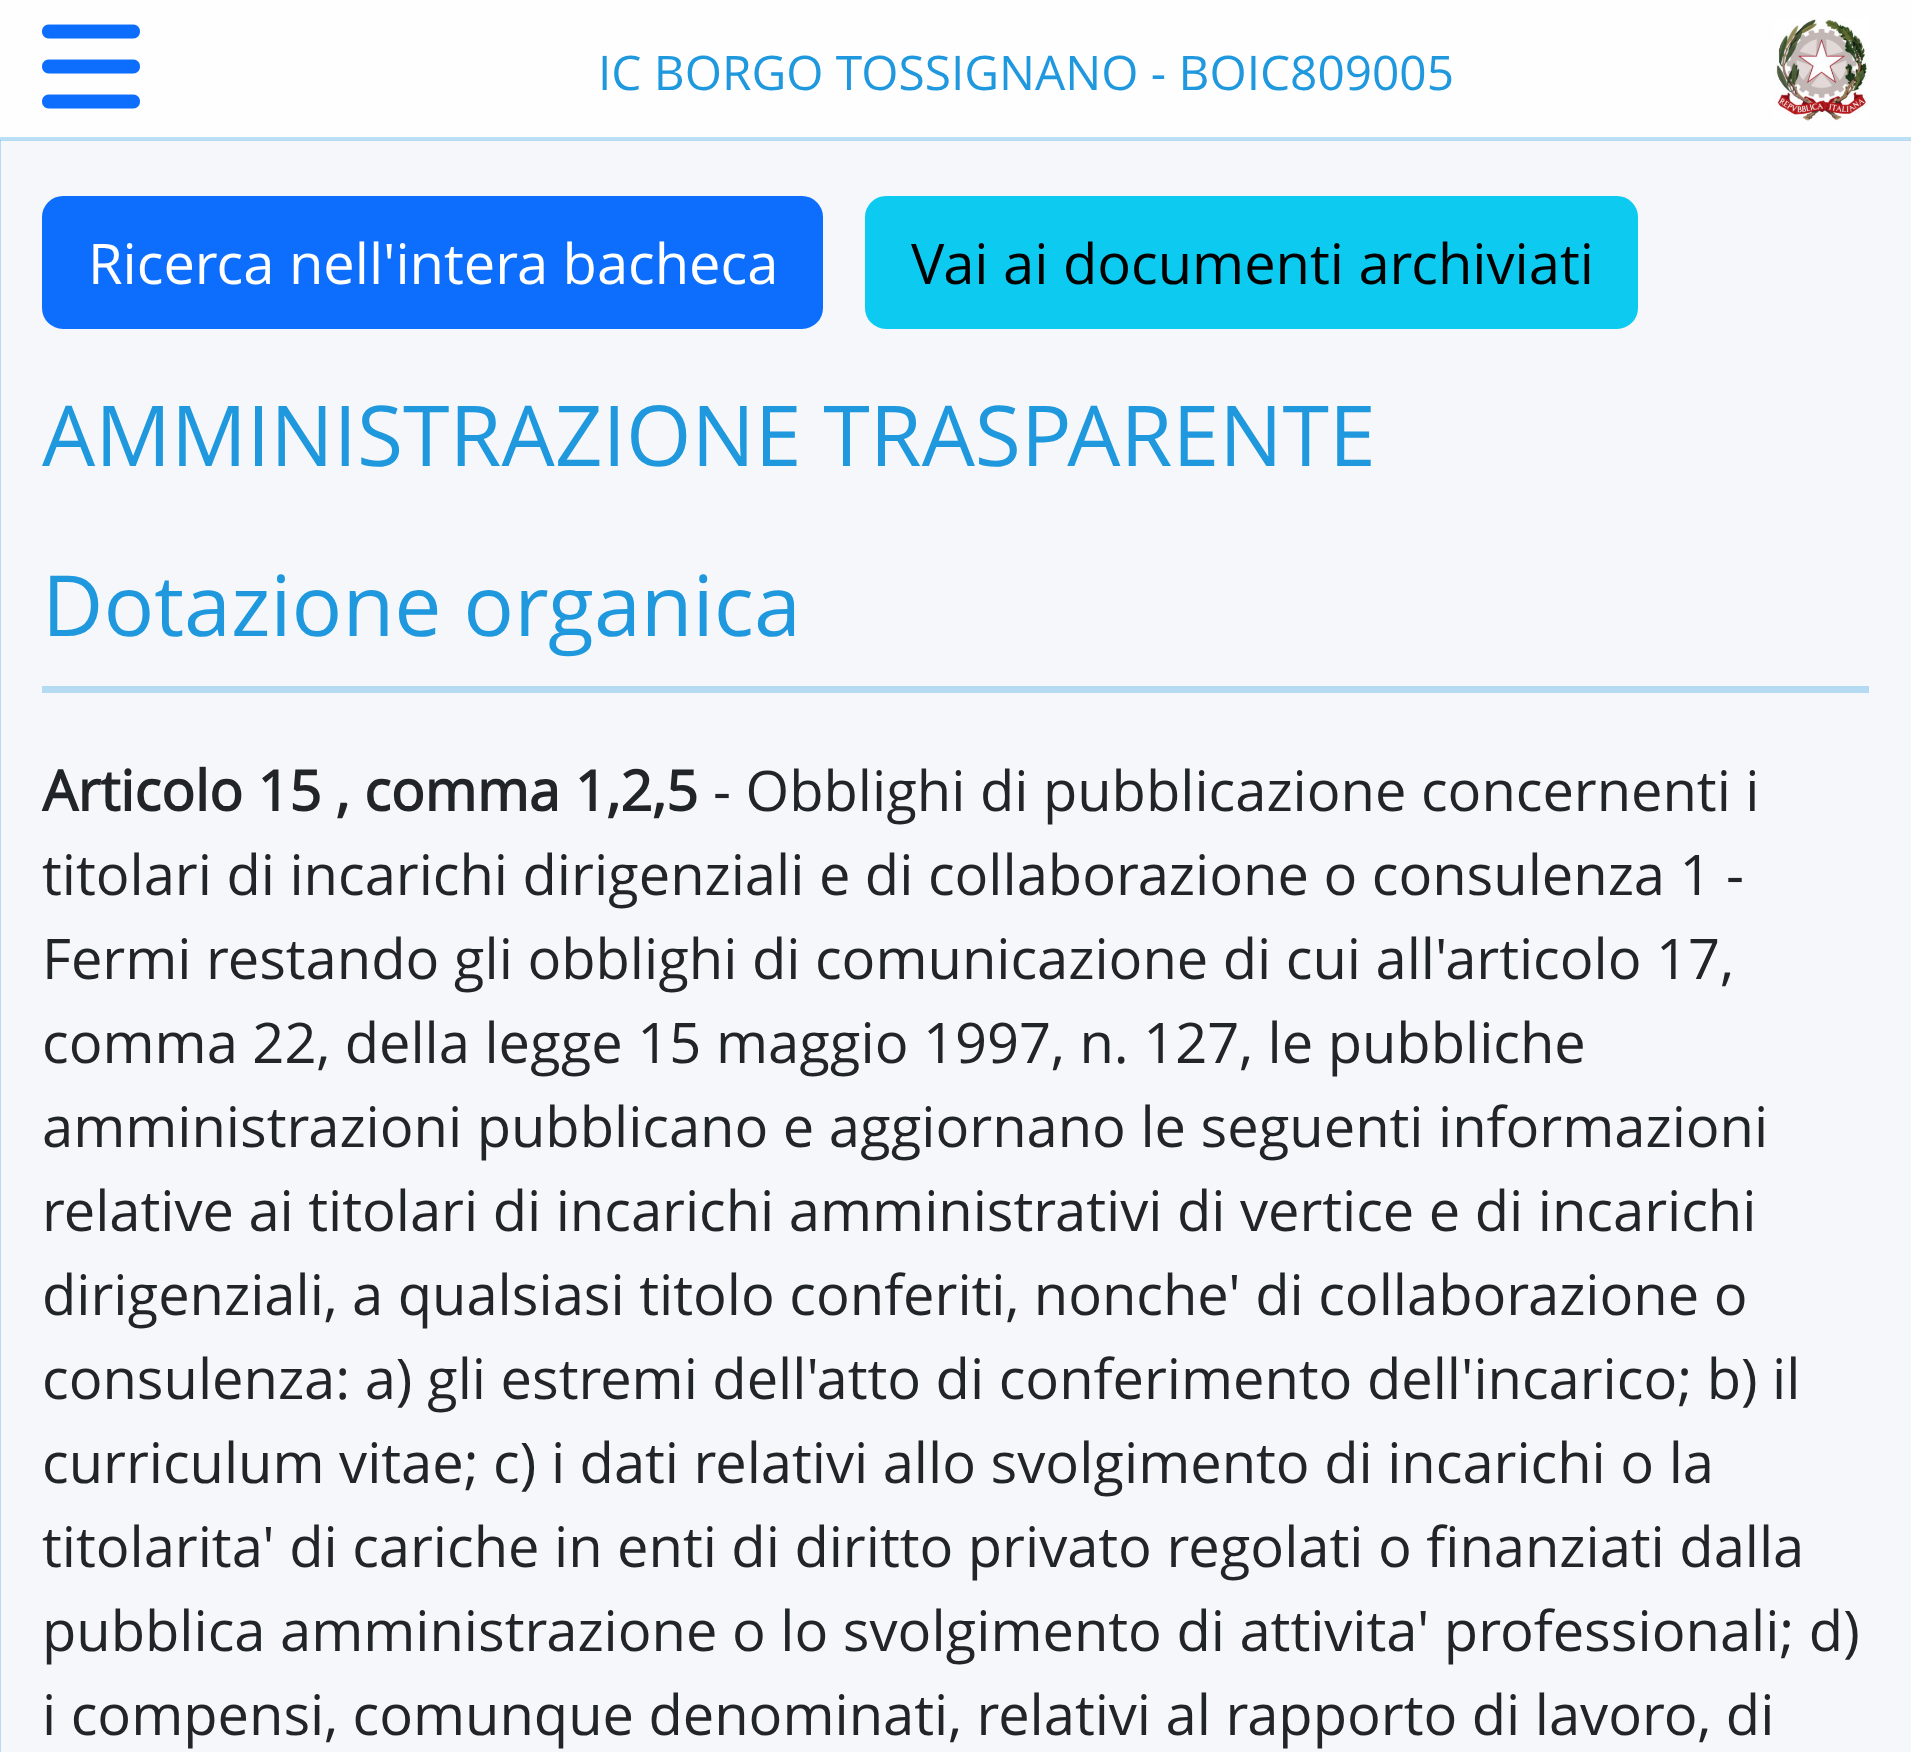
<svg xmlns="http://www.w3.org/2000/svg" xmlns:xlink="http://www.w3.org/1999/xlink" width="1911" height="1752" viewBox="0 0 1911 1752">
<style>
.cls-1{font:47.75px Open Sans;fill:#1f98de}
.cls-2{font:56px Open Sans;fill:#ffffff}
.cls-3{font:56px Open Sans;fill:#000000}
.cls-4{font:84px Open Sans;fill:#1f98de}
.cls-5{font:84.25px Open Sans;fill:#1f98de}
.cls-6{font:bold 56px Open Sans;fill:#212529}
.cls-7{font:56px Open Sans;fill:#212529}
</style>
<rect width="100%" height="100%" fill="#f5f7fa"/>
<rect fill="#b5daf2" x="0" y="140" width="1911" height="1"/>
<rect fill="#fefefe" x="0" y="0" width="1911" height="137"/>
<rect fill="#bbdff4" x="0" y="137" width="1911" height="3"/>
<image xlink:href="image0.png" x="42" y="24" width="98" height="85"/>
<image xlink:href="image1.png" x="1774" y="18" width="95" height="103"/>
<rect fill="#b5dbf2" x="0" y="140" width="1" height="1612"/>
<rect fill="#88c7ec" x="0" y="140" width="1" height="1"/>
<rect fill="#0d6efd" stroke="#0d6efd" stroke-width="4" x="44" y="198" width="777" height="129" rx="19"/>
<rect fill="#0dcaf0" stroke="#0dcaf0" stroke-width="4" x="867" y="198" width="769" height="129" rx="19"/>
<rect fill="#b5dbf2" x="42" y="686" width="1827" height="7"/>
<text class="cls-1" x="598" y="90">IC BORGO TOSSIGNANO - BOIC809005</text>
<text class="cls-2" x="88" y="284">Ricerca nell'intera bacheca</text>
<text class="cls-3" x="911" y="284">Vai ai documenti archiviati</text>
<text class="cls-4" x="42" y="466">AMMINISTRAZIONE TRASPARENTE</text>
<text class="cls-5" x="42" y="636">Dotazione organica</text>
<text class="cls-6" x="42" y="811">Articolo 15 , comma 1,2,5</text>
<text class="cls-7" x="713" y="811">- Obblighi di pubblicazione concernenti i</text>
<text class="cls-7"><tspan x="42" y="895">titolari di incarichi dirigenziali e di collaborazione o consulenza 1 -</tspan><tspan x="42" y="979">Fermi restando gli obblighi di comunicazione di cui all'articolo 17,</tspan><tspan x="42" y="1063">comma 22, della legge 15 maggio 1997, n. 127, le pubbliche</tspan><tspan x="42" y="1147">amministrazioni pubblicano e aggiornano le seguenti informazioni</tspan><tspan x="42" y="1231">relative ai titolari di incarichi amministrativi di vertice e di incarichi</tspan><tspan x="42" y="1315">dirigenziali, a qualsiasi titolo conferiti, nonche' di collaborazione o</tspan><tspan x="42" y="1399">consulenza: a) gli estremi dell'atto di conferimento dell'incarico; b) il</tspan><tspan x="42" y="1483">curriculum vitae; c) i dati relativi allo svolgimento di incarichi o la</tspan><tspan x="42" y="1567">titolarita' di cariche in enti di diritto privato regolati o finanziati dalla</tspan><tspan x="42" y="1651">pubblica amministrazione o lo svolgimento di attivita' professionali; d)</tspan><tspan x="42" y="1735">i compensi, comunque denominati, relativi al rapporto di lavoro, di</tspan></text>
</svg>
